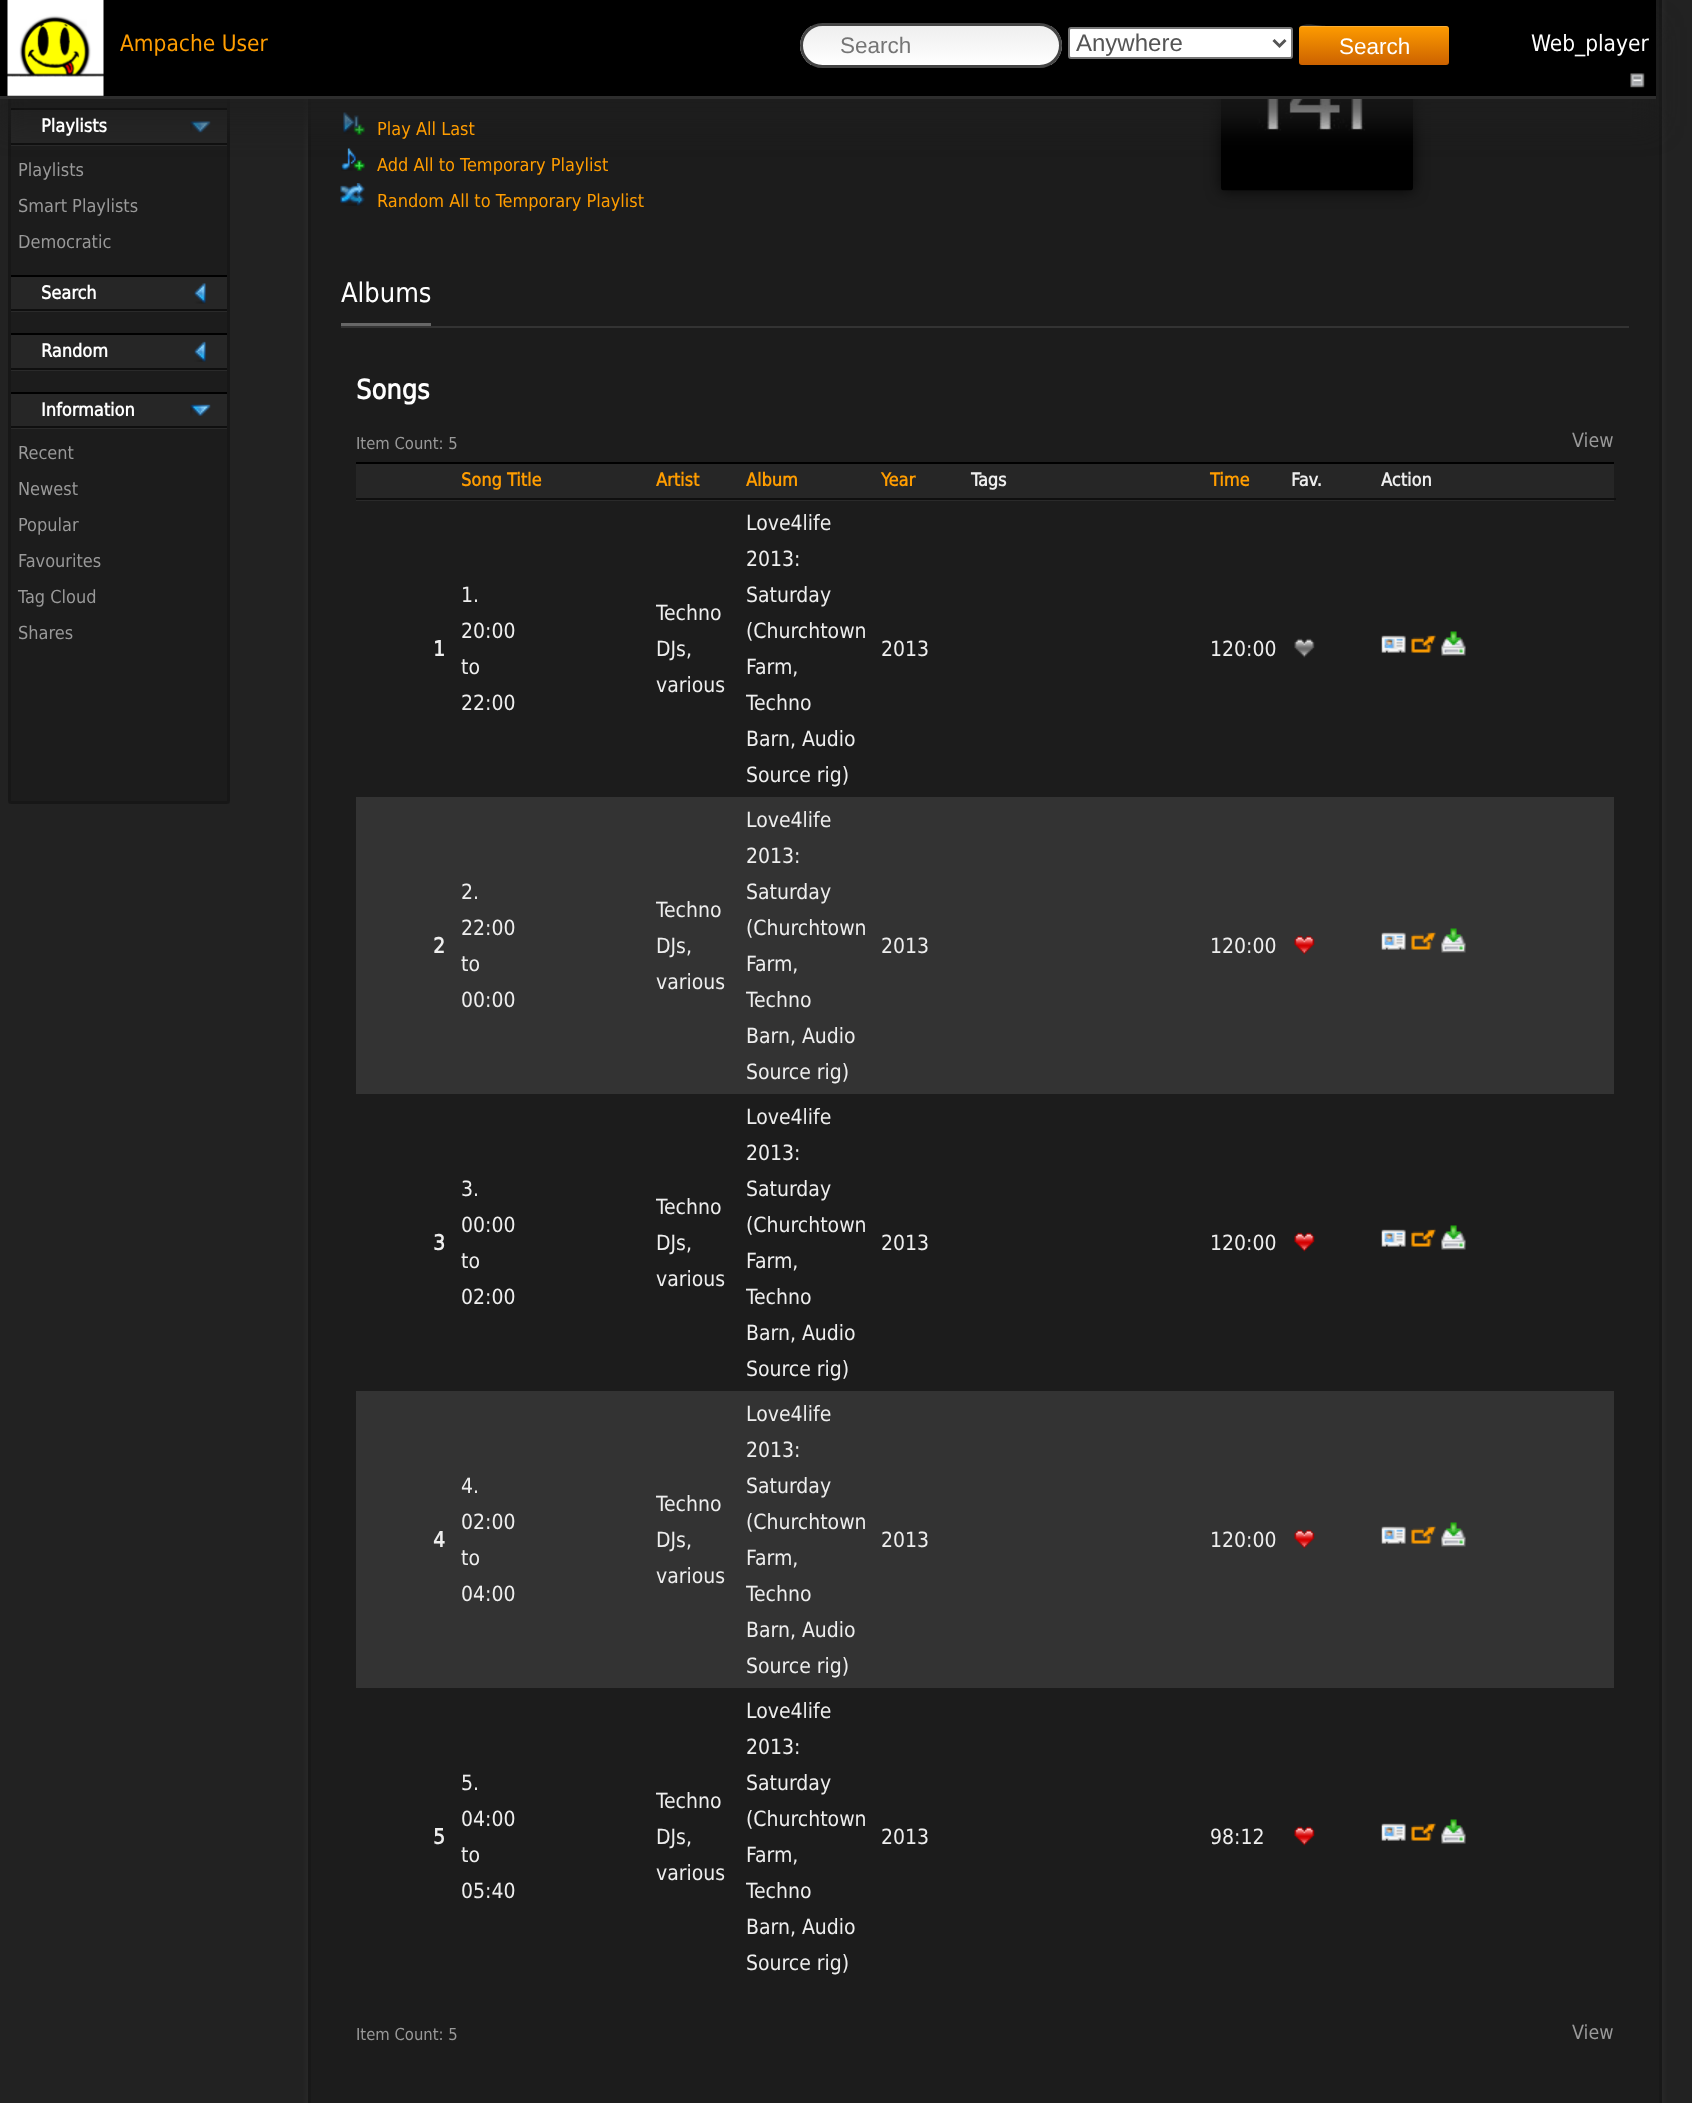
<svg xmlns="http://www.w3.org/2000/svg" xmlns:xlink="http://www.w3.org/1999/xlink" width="1692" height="2103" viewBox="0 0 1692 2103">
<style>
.cls-1{font:22.5px DejaVu Sans;fill:#ff9d00}
.cls-2{font:22.5px Liberation Sans;fill:#757575}
.cls-3{font:24px Liberation Sans;fill:#555555}
.cls-4{font:22.5px Liberation Sans;fill:#ffffff}
.cls-5{font:22.5px DejaVu Sans;fill:#ffffff}
.cls-6{font:bold 18px DejaVu Sans;fill:#ffffff}
.cls-7{font:18px DejaVu Sans;fill:#999999}
.cls-8{font:18px DejaVu Sans;fill:#ff9d00}
.cls-9{font:27px DejaVu Sans;fill:#ffffff}
.cls-10{font:bold 27px DejaVu Sans;fill:#ffffff}
.cls-11{font:16.5px DejaVu Sans;fill:#999999}
.cls-12{font:19.5px DejaVu Sans;fill:#999999}
.cls-13{font:bold 18px DejaVu Sans;fill:#ff9d00}
.cls-14{font:bold 18px DejaVu Sans;fill:#eeeeee}
.cls-15{font:bold 21px DejaVu Sans;fill:#eeeeee}
.cls-16{font:21px DejaVu Sans;fill:#eeeeee}
</style>
<defs>
<clipPath id="clip1"><rect x="800" y="23" width="262" height="45" rx="22.5"/></clipPath>
<linearGradient id="g1" gradientUnits="userSpaceOnUse" x1="931" y1="25" x2="931" y2="65"><stop offset="0" stop-color="#eeeeee"/><stop offset="1" stop-color="#ffffff"/></linearGradient>
<linearGradient id="g2" gradientUnits="userSpaceOnUse" x1="1374" y1="25" x2="1374" y2="65"><stop offset="0" stop-color="#ff9d00"/><stop offset="1" stop-color="#cc6200"/></linearGradient>
<clipPath id="clip2"><rect x="656" y="500" width="90" height="297"/></clipPath>
<clipPath id="clip3"><rect x="746" y="500" width="135" height="297"/></clipPath>
<clipPath id="clip4"><rect x="656" y="797" width="90" height="297"/></clipPath>
<clipPath id="clip5"><rect x="746" y="797" width="135" height="297"/></clipPath>
<clipPath id="clip6"><rect x="656" y="1094" width="90" height="297"/></clipPath>
<clipPath id="clip7"><rect x="746" y="1094" width="135" height="297"/></clipPath>
<clipPath id="clip8"><rect x="656" y="1391" width="90" height="297"/></clipPath>
<clipPath id="clip9"><rect x="746" y="1391" width="135" height="297"/></clipPath>
<clipPath id="clip10"><rect x="656" y="1688" width="90" height="297"/></clipPath>
<clipPath id="clip11"><rect x="746" y="1688" width="135" height="297"/></clipPath>
</defs>
<rect width="100%" height="100%" fill="#222222"/>
<rect fill="#000000" fill-opacity="0.15" x="8" y="-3" width="222" height="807" rx="3"/>
<rect fill="none" stroke="#000000" stroke-opacity="0.15" stroke-width="3" x="9.5" y="-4.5" width="219" height="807" rx="1.5"/>
<path fill="#2a2a2a" d="M11 144V146H227V110H226V144Z"/>
<rect fill="#262626" x="11" y="110" width="216" height="33"/>
<rect fill="#000000" x="11" y="108" width="216" height="2"/>
<rect fill="#0f0f0f" x="11" y="143" width="216" height="2"/>
<image xlink:href="image2.png" x="190" y="121" width="21" height="12"/>
<rect fill="#ffffff" fill-opacity="0.05" filter="blur(4px)" x="308" y="-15" width="1354" height="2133" rx="3"/>
<rect fill="#1c1c1c" stroke="#181818" stroke-width="3" x="309.5" y="-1.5" width="1351" height="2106"/>
<image xlink:href="image6.png" x="343" y="112" width="22" height="23"/>
<image xlink:href="image7.png" x="341" y="148" width="24" height="23"/>
<rect fill="#000000" fill-opacity="0.75" filter="blur(7.5px)" x="1221" y="-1" width="192" height="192" rx="3"/>
<image xlink:href="image9.png" x="1221" y="99" width="192" height="92"/>
<rect fill="#1e1e1e" fill-opacity="0.7" filter="blur(13.5px)" x="0" y="27" width="1656" height="99"/>
<rect fill="#000000" x="0" y="0" width="1656" height="96"/>
<rect fill="#2d2d2d" x="0" y="96" width="1656" height="3"/>
<image xlink:href="image0.png" x="7" y="0" width="97" height="96"/>
<g clip-path="url(#clip1)">
<rect fill="url(#g1)" x="800" y="26" width="262" height="39"/>
</g>
<rect fill="none" stroke="#444444" stroke-width="3" x="801.5" y="24.5" width="259" height="42" rx="21"/>
<rect fill="#ffffff" stroke="#767676" stroke-width="2" x="1069" y="28" width="223" height="30" rx="2"/>
<path fill="none" stroke="#555555" stroke-width="3" d="M1273.5 40L1279.5 46L1285.5 40"/>
<rect fill="url(#g2)" x="1299" y="26" width="150" height="39" rx="3"/>
<path fill="#ffffff" fill-opacity="0.2" d="M1302 27H1446C1448 27 1449 28 1449 30C1449 28 1449 27 1447 26H1326C1318 26 1299 21 1299 30C1299 28 1300 27 1302 27Z"/>
<image xlink:href="image1.png" x="1630" y="73" width="15" height="15"/>
<path fill="#2a2a2a" d="M11 310V312H227V276H226V310Z"/>
<rect fill="#262626" x="11" y="277" width="216" height="32"/>
<rect fill="#000000" x="11" y="275" width="216" height="2"/>
<rect fill="#0f0f0f" x="11" y="309" width="216" height="2"/>
<image xlink:href="image3.png" x="194" y="283" width="12" height="21"/>
<path fill="#2a2a2a" d="M11 369V371H227V335H226V369Z"/>
<rect fill="#262626" x="11" y="335" width="216" height="33"/>
<rect fill="#000000" x="11" y="333" width="216" height="2"/>
<rect fill="#0f0f0f" x="11" y="368" width="216" height="2"/>
<image xlink:href="image4.png" x="194" y="341" width="12" height="21"/>
<path fill="#2a2a2a" d="M11 428V429H227V393H226V428Z"/>
<rect fill="#262626" x="11" y="394" width="216" height="32"/>
<rect fill="#000000" x="11" y="392" width="216" height="2"/>
<rect fill="#0f0f0f" x="11" y="426" width="216" height="2"/>
<image xlink:href="image5.png" x="190" y="404" width="21" height="12"/>
<image xlink:href="image8.png" x="340" y="183" width="25" height="23"/>
<rect fill="#333333" x="341" y="326" width="1288" height="2"/>
<rect fill="#666666" x="341" y="323" width="90" height="3"/>
<rect fill="#2a2a2a" x="356" y="500" width="1258" height="1"/>
<rect fill="#262626" x="356" y="464" width="1258" height="34"/>
<rect fill="#000000" x="356" y="462" width="1258" height="2"/>
<rect fill="#0f0f0f" x="356" y="498" width="1260" height="2"/>
<image xlink:href="image10.png" x="1294" y="638" width="21" height="20"/>
<image xlink:href="image11.png" x="1381" y="635" width="25" height="18"/>
<image xlink:href="image12.png" x="1411" y="634" width="25" height="19"/>
<image xlink:href="image13.png" x="1441" y="631" width="25" height="25"/>
<rect fill="#333333" x="356" y="797" width="1258" height="297"/>
<image xlink:href="image14.png" x="1294" y="935" width="21" height="20"/>
<image xlink:href="image15.png" x="1381" y="932" width="25" height="18"/>
<image xlink:href="image16.png" x="1411" y="931" width="25" height="19"/>
<image xlink:href="image17.png" x="1441" y="928" width="25" height="25"/>
<image xlink:href="image18.png" x="1294" y="1232" width="21" height="20"/>
<image xlink:href="image11.png" x="1381" y="1229" width="25" height="18"/>
<image xlink:href="image12.png" x="1411" y="1228" width="25" height="19"/>
<image xlink:href="image13.png" x="1441" y="1225" width="25" height="25"/>
<rect fill="#333333" x="356" y="1391" width="1258" height="297"/>
<image xlink:href="image14.png" x="1294" y="1529" width="21" height="20"/>
<image xlink:href="image15.png" x="1381" y="1526" width="25" height="18"/>
<image xlink:href="image16.png" x="1411" y="1525" width="25" height="19"/>
<image xlink:href="image17.png" x="1441" y="1522" width="25" height="25"/>
<image xlink:href="image18.png" x="1294" y="1826" width="21" height="20"/>
<image xlink:href="image11.png" x="1381" y="1823" width="25" height="18"/>
<image xlink:href="image12.png" x="1411" y="1822" width="25" height="19"/>
<image xlink:href="image13.png" x="1441" y="1819" width="25" height="25"/>
<text class="cls-1" x="120" y="51">Ampache User</text>
<text class="cls-2" x="840" y="53">Search</text>
<text class="cls-3" x="1076" y="51">Anywhere</text>
<text class="cls-4" x="1339" y="54">Search</text>
<text class="cls-5" x="1531" y="51">Web_player</text>
<text class="cls-6" x="41" y="132">Playlists</text>
<text class="cls-7" x="18" y="176">Playlists</text>
<text class="cls-7" x="18" y="212">Smart Playlists</text>
<text class="cls-7" x="18" y="248">Democratic</text>
<text class="cls-6" x="41" y="299">Search</text>
<text class="cls-6" x="41" y="357">Random</text>
<text class="cls-6" x="41" y="416">Information</text>
<text class="cls-7" x="18" y="459">Recent</text>
<text class="cls-7" x="18" y="495">Newest</text>
<text class="cls-7" x="18" y="531">Popular</text>
<text class="cls-7" x="18" y="567">Favourites</text>
<text class="cls-7" x="18" y="603">Tag Cloud</text>
<text class="cls-7" x="18" y="639">Shares</text>
<text class="cls-8" x="377" y="135">Play All Last</text>
<text class="cls-8" x="377" y="171">Add All to Temporary Playlist</text>
<text class="cls-8" x="377" y="207">Random All to Temporary Playlist</text>
<text class="cls-9" x="341" y="302">Albums</text>
<text class="cls-10" x="356" y="399">Songs</text>
<text class="cls-11" x="356" y="449">Item Count: 5</text>
<text class="cls-12" x="1572" y="447">View</text>
<text class="cls-13" x="461" y="486">Song Title</text>
<text class="cls-13" x="656" y="486">Artist</text>
<text class="cls-13" x="746" y="486">Album</text>
<text class="cls-13" x="881" y="486">Year</text>
<text class="cls-14" x="971" y="486">Tags</text>
<text class="cls-13" x="1210" y="486">Time</text>
<text class="cls-14" x="1291" y="486">Fav.</text>
<text class="cls-14" x="1381" y="486">Action</text>
<text class="cls-15" x="433" y="656">1</text>
<text class="cls-16"><tspan x="461" y="602">1.</tspan><tspan x="461" y="638">20:00</tspan><tspan x="461" y="674">to</tspan><tspan x="461" y="710">22:00</tspan></text>
<g clip-path="url(#clip2)">
<text class="cls-16" x="656" y="620">Techno</text>
</g>
<text class="cls-16"><tspan x="656" y="656">DJs,</tspan><tspan x="656" y="692">various</tspan></text>
<text class="cls-16"><tspan x="746" y="530">Love4life</tspan><tspan x="746" y="566">2013:</tspan><tspan x="746" y="602">Saturday</tspan><tspan x="746" y="638">(Churchtown</tspan><tspan x="746" y="674">Farm,</tspan></text>
<g clip-path="url(#clip3)">
<text class="cls-16" x="746" y="710">Techno</text>
</g>
<text class="cls-16"><tspan x="746" y="746">Barn, Audio</tspan><tspan x="746" y="782">Source rig)</tspan></text>
<text class="cls-16" x="881" y="656">2013</text>
<text class="cls-16" x="1210" y="656">120:00</text>
<text class="cls-15" x="433" y="953">2</text>
<text class="cls-16"><tspan x="461" y="899">2.</tspan><tspan x="461" y="935">22:00</tspan><tspan x="461" y="971">to</tspan><tspan x="461" y="1007">00:00</tspan></text>
<g clip-path="url(#clip4)">
<text class="cls-16" x="656" y="917">Techno</text>
</g>
<text class="cls-16"><tspan x="656" y="953">DJs,</tspan><tspan x="656" y="989">various</tspan></text>
<text class="cls-16"><tspan x="746" y="827">Love4life</tspan><tspan x="746" y="863">2013:</tspan><tspan x="746" y="899">Saturday</tspan><tspan x="746" y="935">(Churchtown</tspan><tspan x="746" y="971">Farm,</tspan></text>
<g clip-path="url(#clip5)">
<text class="cls-16" x="746" y="1007">Techno</text>
</g>
<text class="cls-16"><tspan x="746" y="1043">Barn, Audio</tspan><tspan x="746" y="1079">Source rig)</tspan></text>
<text class="cls-16" x="881" y="953">2013</text>
<text class="cls-16" x="1210" y="953">120:00</text>
<text class="cls-15" x="433" y="1250">3</text>
<text class="cls-16"><tspan x="461" y="1196">3.</tspan><tspan x="461" y="1232">00:00</tspan><tspan x="461" y="1268">to</tspan><tspan x="461" y="1304">02:00</tspan></text>
<g clip-path="url(#clip6)">
<text class="cls-16" x="656" y="1214">Techno</text>
</g>
<text class="cls-16"><tspan x="656" y="1250">DJs,</tspan><tspan x="656" y="1286">various</tspan></text>
<text class="cls-16"><tspan x="746" y="1124">Love4life</tspan><tspan x="746" y="1160">2013:</tspan><tspan x="746" y="1196">Saturday</tspan><tspan x="746" y="1232">(Churchtown</tspan><tspan x="746" y="1268">Farm,</tspan></text>
<g clip-path="url(#clip7)">
<text class="cls-16" x="746" y="1304">Techno</text>
</g>
<text class="cls-16"><tspan x="746" y="1340">Barn, Audio</tspan><tspan x="746" y="1376">Source rig)</tspan></text>
<text class="cls-16" x="881" y="1250">2013</text>
<text class="cls-16" x="1210" y="1250">120:00</text>
<text class="cls-15" x="433" y="1547">4</text>
<text class="cls-16"><tspan x="461" y="1493">4.</tspan><tspan x="461" y="1529">02:00</tspan><tspan x="461" y="1565">to</tspan><tspan x="461" y="1601">04:00</tspan></text>
<g clip-path="url(#clip8)">
<text class="cls-16" x="656" y="1511">Techno</text>
</g>
<text class="cls-16"><tspan x="656" y="1547">DJs,</tspan><tspan x="656" y="1583">various</tspan></text>
<text class="cls-16"><tspan x="746" y="1421">Love4life</tspan><tspan x="746" y="1457">2013:</tspan><tspan x="746" y="1493">Saturday</tspan><tspan x="746" y="1529">(Churchtown</tspan><tspan x="746" y="1565">Farm,</tspan></text>
<g clip-path="url(#clip9)">
<text class="cls-16" x="746" y="1601">Techno</text>
</g>
<text class="cls-16"><tspan x="746" y="1637">Barn, Audio</tspan><tspan x="746" y="1673">Source rig)</tspan></text>
<text class="cls-16" x="881" y="1547">2013</text>
<text class="cls-16" x="1210" y="1547">120:00</text>
<text class="cls-15" x="433" y="1844">5</text>
<text class="cls-16"><tspan x="461" y="1790">5.</tspan><tspan x="461" y="1826">04:00</tspan><tspan x="461" y="1862">to</tspan><tspan x="461" y="1898">05:40</tspan></text>
<g clip-path="url(#clip10)">
<text class="cls-16" x="656" y="1808">Techno</text>
</g>
<text class="cls-16"><tspan x="656" y="1844">DJs,</tspan><tspan x="656" y="1880">various</tspan></text>
<text class="cls-16"><tspan x="746" y="1718">Love4life</tspan><tspan x="746" y="1754">2013:</tspan><tspan x="746" y="1790">Saturday</tspan><tspan x="746" y="1826">(Churchtown</tspan><tspan x="746" y="1862">Farm,</tspan></text>
<g clip-path="url(#clip11)">
<text class="cls-16" x="746" y="1898">Techno</text>
</g>
<text class="cls-16"><tspan x="746" y="1934">Barn, Audio</tspan><tspan x="746" y="1970">Source rig)</tspan></text>
<text class="cls-16" x="881" y="1844">2013</text>
<text class="cls-16" x="1210" y="1844">98:12</text>
<text class="cls-11" x="356" y="2040">Item Count: 5</text>
<text class="cls-12" x="1572" y="2039">View</text>
</svg>
